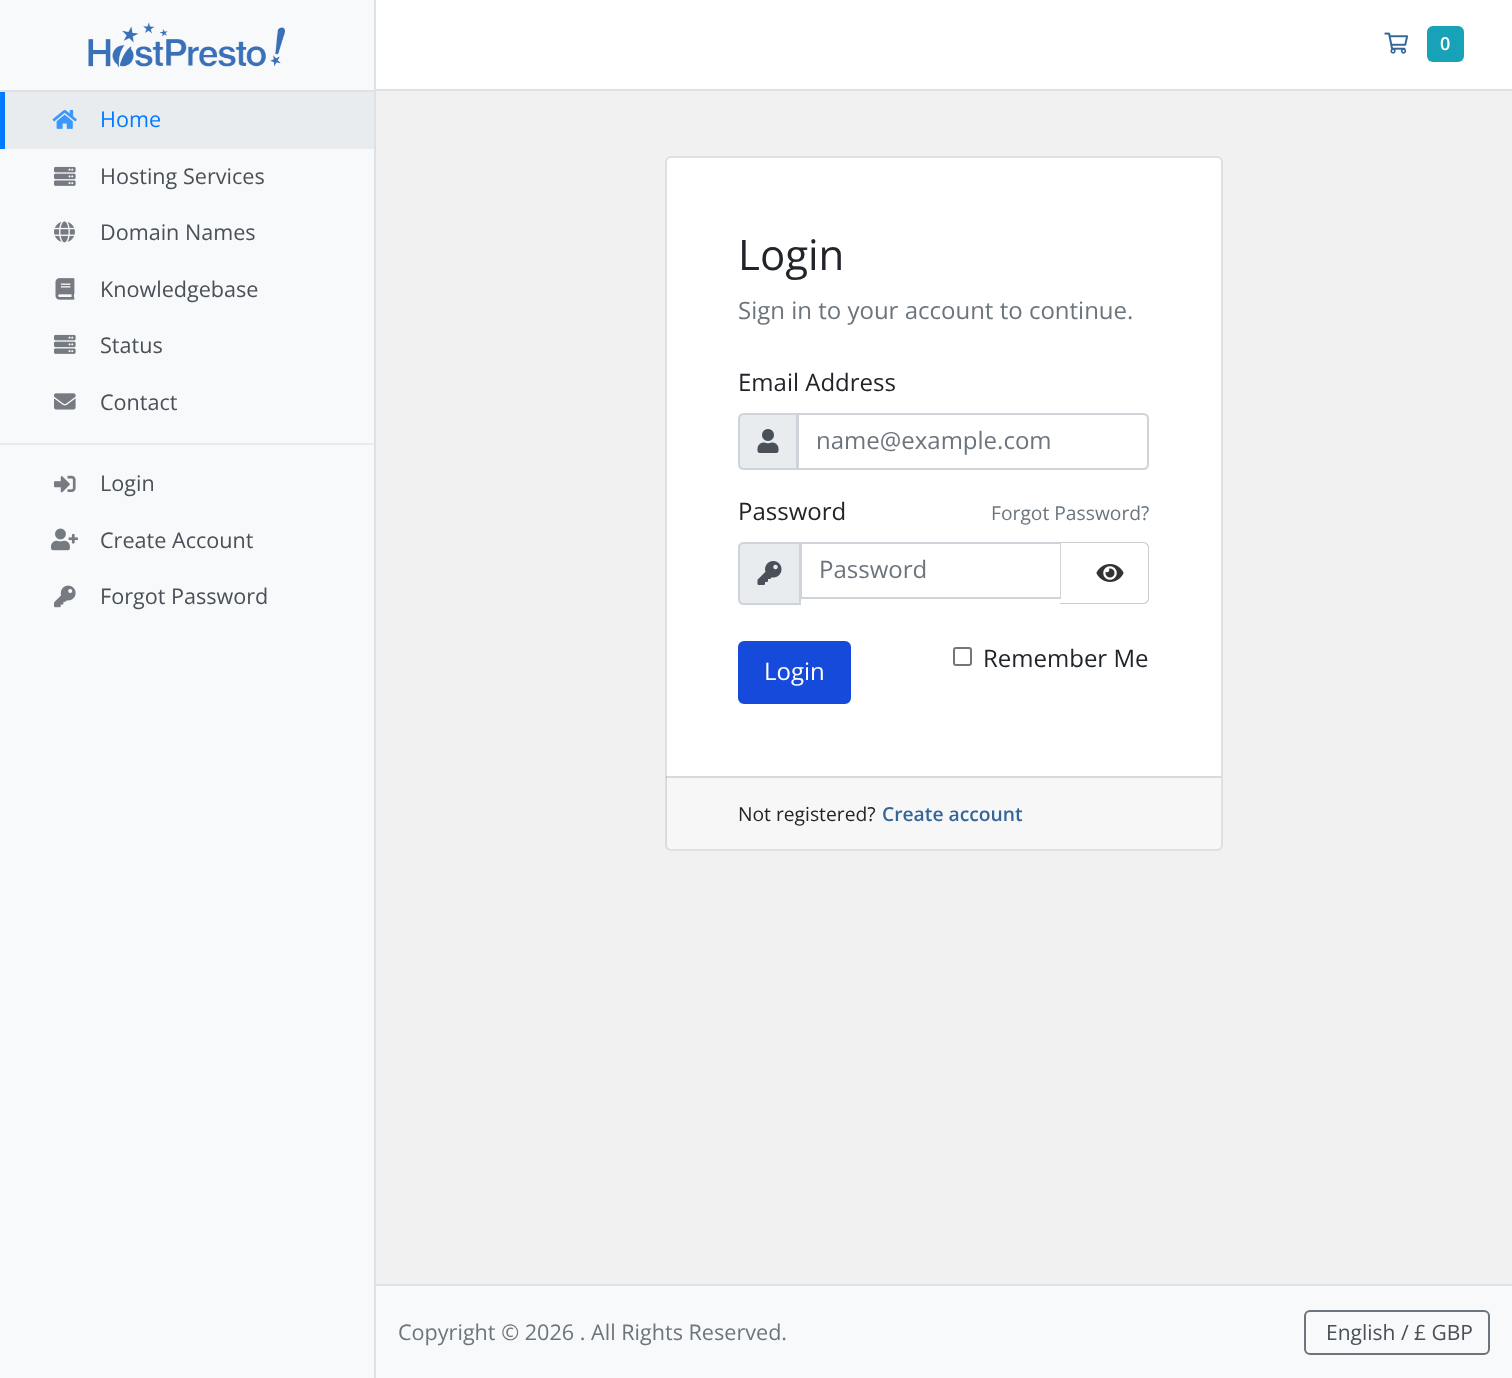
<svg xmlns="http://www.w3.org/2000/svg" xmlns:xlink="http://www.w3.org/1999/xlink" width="1512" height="1378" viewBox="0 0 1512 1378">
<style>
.cls-1{font:21.6px Open Sans;fill:#007bff}
.cls-2{font:21.6px Open Sans;fill:#495057}
.cls-3{font:600 18px Open Sans;fill:#ffffff}
.cls-4{font:42px Open Sans;fill:#212529}
.cls-5{font:24px Open Sans;fill:#6c757d}
.cls-6{font:24px Open Sans;fill:#212529}
.cls-7{font:19.25px Open Sans;fill:#6c757d}
.cls-8{font:24px Open Sans;fill:#ffffff}
.cls-9{font:19.25px Open Sans;fill:#212529}
.cls-10{font:600 19.25px Open Sans;fill:#336699}
.cls-11{font:21.6px Open Sans;fill:#6c757d}
.cls-12{font:21px Open Sans;fill:#495057}
</style>
<rect width="100%" height="100%" fill="#f1f1f1"/>
<rect fill="#f8f9fa" x="0" y="0" width="374" height="1378"/>
<rect fill="#dee2e6" x="375" y="89" width="1137" height="2"/>
<rect fill="#dee2e6" x="375" y="1284" width="1137" height="2"/>
<rect fill="#dee2e6" x="374" y="0" width="2" height="1378"/>
<rect fill="#dee2e6" x="0" y="90" width="374" height="2"/>
<image xlink:href="image0.png" x="88" y="22" width="197" height="46"/>
<rect fill="#e9ecef" x="5" y="92" width="369" height="57"/>
<rect fill="#007bff" x="0" y="92" width="5" height="57"/>
<image xlink:href="image1.png" x="52" y="109" width="25" height="20"/>
<image xlink:href="image2.png" x="54" y="166" width="22" height="20"/>
<image xlink:href="image3.png" x="54" y="221" width="21" height="22"/>
<image xlink:href="image4.png" x="55" y="278" width="20" height="22"/>
<image xlink:href="image2.png" x="54" y="334" width="22" height="20"/>
<image xlink:href="image5.png" x="54" y="393" width="22" height="17"/>
<rect fill="#e9ecef" x="0" y="443" width="374" height="2"/>
<image xlink:href="image6.png" x="54" y="475" width="22" height="18"/>
<image xlink:href="image7.png" x="51" y="528" width="27" height="23"/>
<image xlink:href="image8.png" x="54" y="585" width="22" height="23"/>
<rect fill="#ffffff" x="376" y="0" width="1136" height="89"/>
<image xlink:href="image9.png" x="1384" y="32" width="25" height="22"/>
<rect fill="#17a2b8" x="1427" y="26" width="37" height="36" rx="6"/>
<rect fill="#ffffff" x="665" y="156" width="558" height="695" rx="6"/>
<rect fill="none" stroke="#000000" stroke-opacity="0.12" stroke-width="2" x="666" y="157" width="556" height="693" rx="5"/>
<path fill="#e9ecef" stroke="#ced4da" stroke-width="2" d="M744 414H797V469H744C741 469 739 467 739 464V419C739 416 741 414 744 414Z"/>
<image xlink:href="image10.png" x="757" y="429" width="22" height="24"/>
<path fill="none" stroke="#ced4da" stroke-width="2" d="M798 414H1143C1146 414 1148 416 1148 419V464C1148 467 1146 469 1143 469H798Z"/>
<path fill="#e9ecef" stroke="#ced4da" stroke-width="2" d="M744 543H800V604H744C741 604 739 602 739 599V548C739 545 741 543 744 543Z"/>
<image xlink:href="image11.png" x="757" y="561" width="25" height="24"/>
<rect fill="none" stroke="#ced4da" stroke-width="2" x="801" y="543" width="260" height="55"/>
<path fill="#ffffff" d="M1061 542H1143C1146.5 542 1149 544.5 1149 548V599C1149 602.5 1146.5 605 1143 605H1061Z"/>
<path fill="#cccccc" fill-rule="evenodd" d="M1060 542H1143C1146 542 1149 544 1149 548V598C1149 602 1146 604 1143 604H1060ZM1060 543H1143C1145 543 1148 545 1148 548V598C1148 601 1145 603 1143 603H1060Z"/>
<image xlink:href="image12.png" x="1096" y="564" width="28" height="18"/>
<rect fill="none" stroke="#767676" stroke-width="2" x="954" y="648" width="17" height="17" rx="2"/>
<rect fill="#164adb" stroke="#164adb" stroke-width="2" x="739" y="642" width="111" height="61" rx="5"/>
<rect fill="#000000" fill-opacity="0.03" x="666" y="776" width="555" height="73"/>
<rect fill="#000000" fill-opacity="0.12" x="666" y="776" width="555" height="2"/>
<rect fill="#f8f9fa" x="376" y="1286" width="1136" height="92"/>
<rect fill="none" stroke="#6c757d" stroke-width="2" x="1305" y="1311" width="184" height="43" rx="5"/>
<text class="cls-1" x="100" y="127">Home</text>
<text class="cls-2" x="100" y="184">Hosting Services</text>
<text class="cls-2" x="100" y="240">Domain Names</text>
<text class="cls-2" x="100" y="297">Knowledgebase</text>
<text class="cls-2" x="100" y="353">Status</text>
<text class="cls-2" x="100" y="410">Contact</text>
<text class="cls-2" x="100" y="491">Login</text>
<text class="cls-2" x="100" y="548">Create Account</text>
<text class="cls-2" x="100" y="604">Forgot Password</text>
<text class="cls-3" x="1440" y="50">0</text>
<text class="cls-4" x="738" y="270">Login</text>
<text class="cls-5" x="738" y="319">Sign in to your account to continue.</text>
<text class="cls-6" x="738" y="391">Email Address</text>
<text class="cls-5" x="816" y="449">name@example.com</text>
<text class="cls-6" x="738" y="520">Password</text>
<text class="cls-7" x="991" y="520">Forgot Password?</text>
<text class="cls-5" x="819" y="578">Password</text>
<text class="cls-6" x="983" y="667">Remember Me</text>
<text class="cls-8" x="764" y="680">Login</text>
<text class="cls-9" x="738" y="821">Not registered?</text>
<text class="cls-10" x="882" y="821">Create account</text>
<text class="cls-11" x="398" y="1340">Copyright © 2026 . All Rights Reserved.</text>
<text class="cls-12" x="1326" y="1340">English / £ GBP</text>
</svg>
